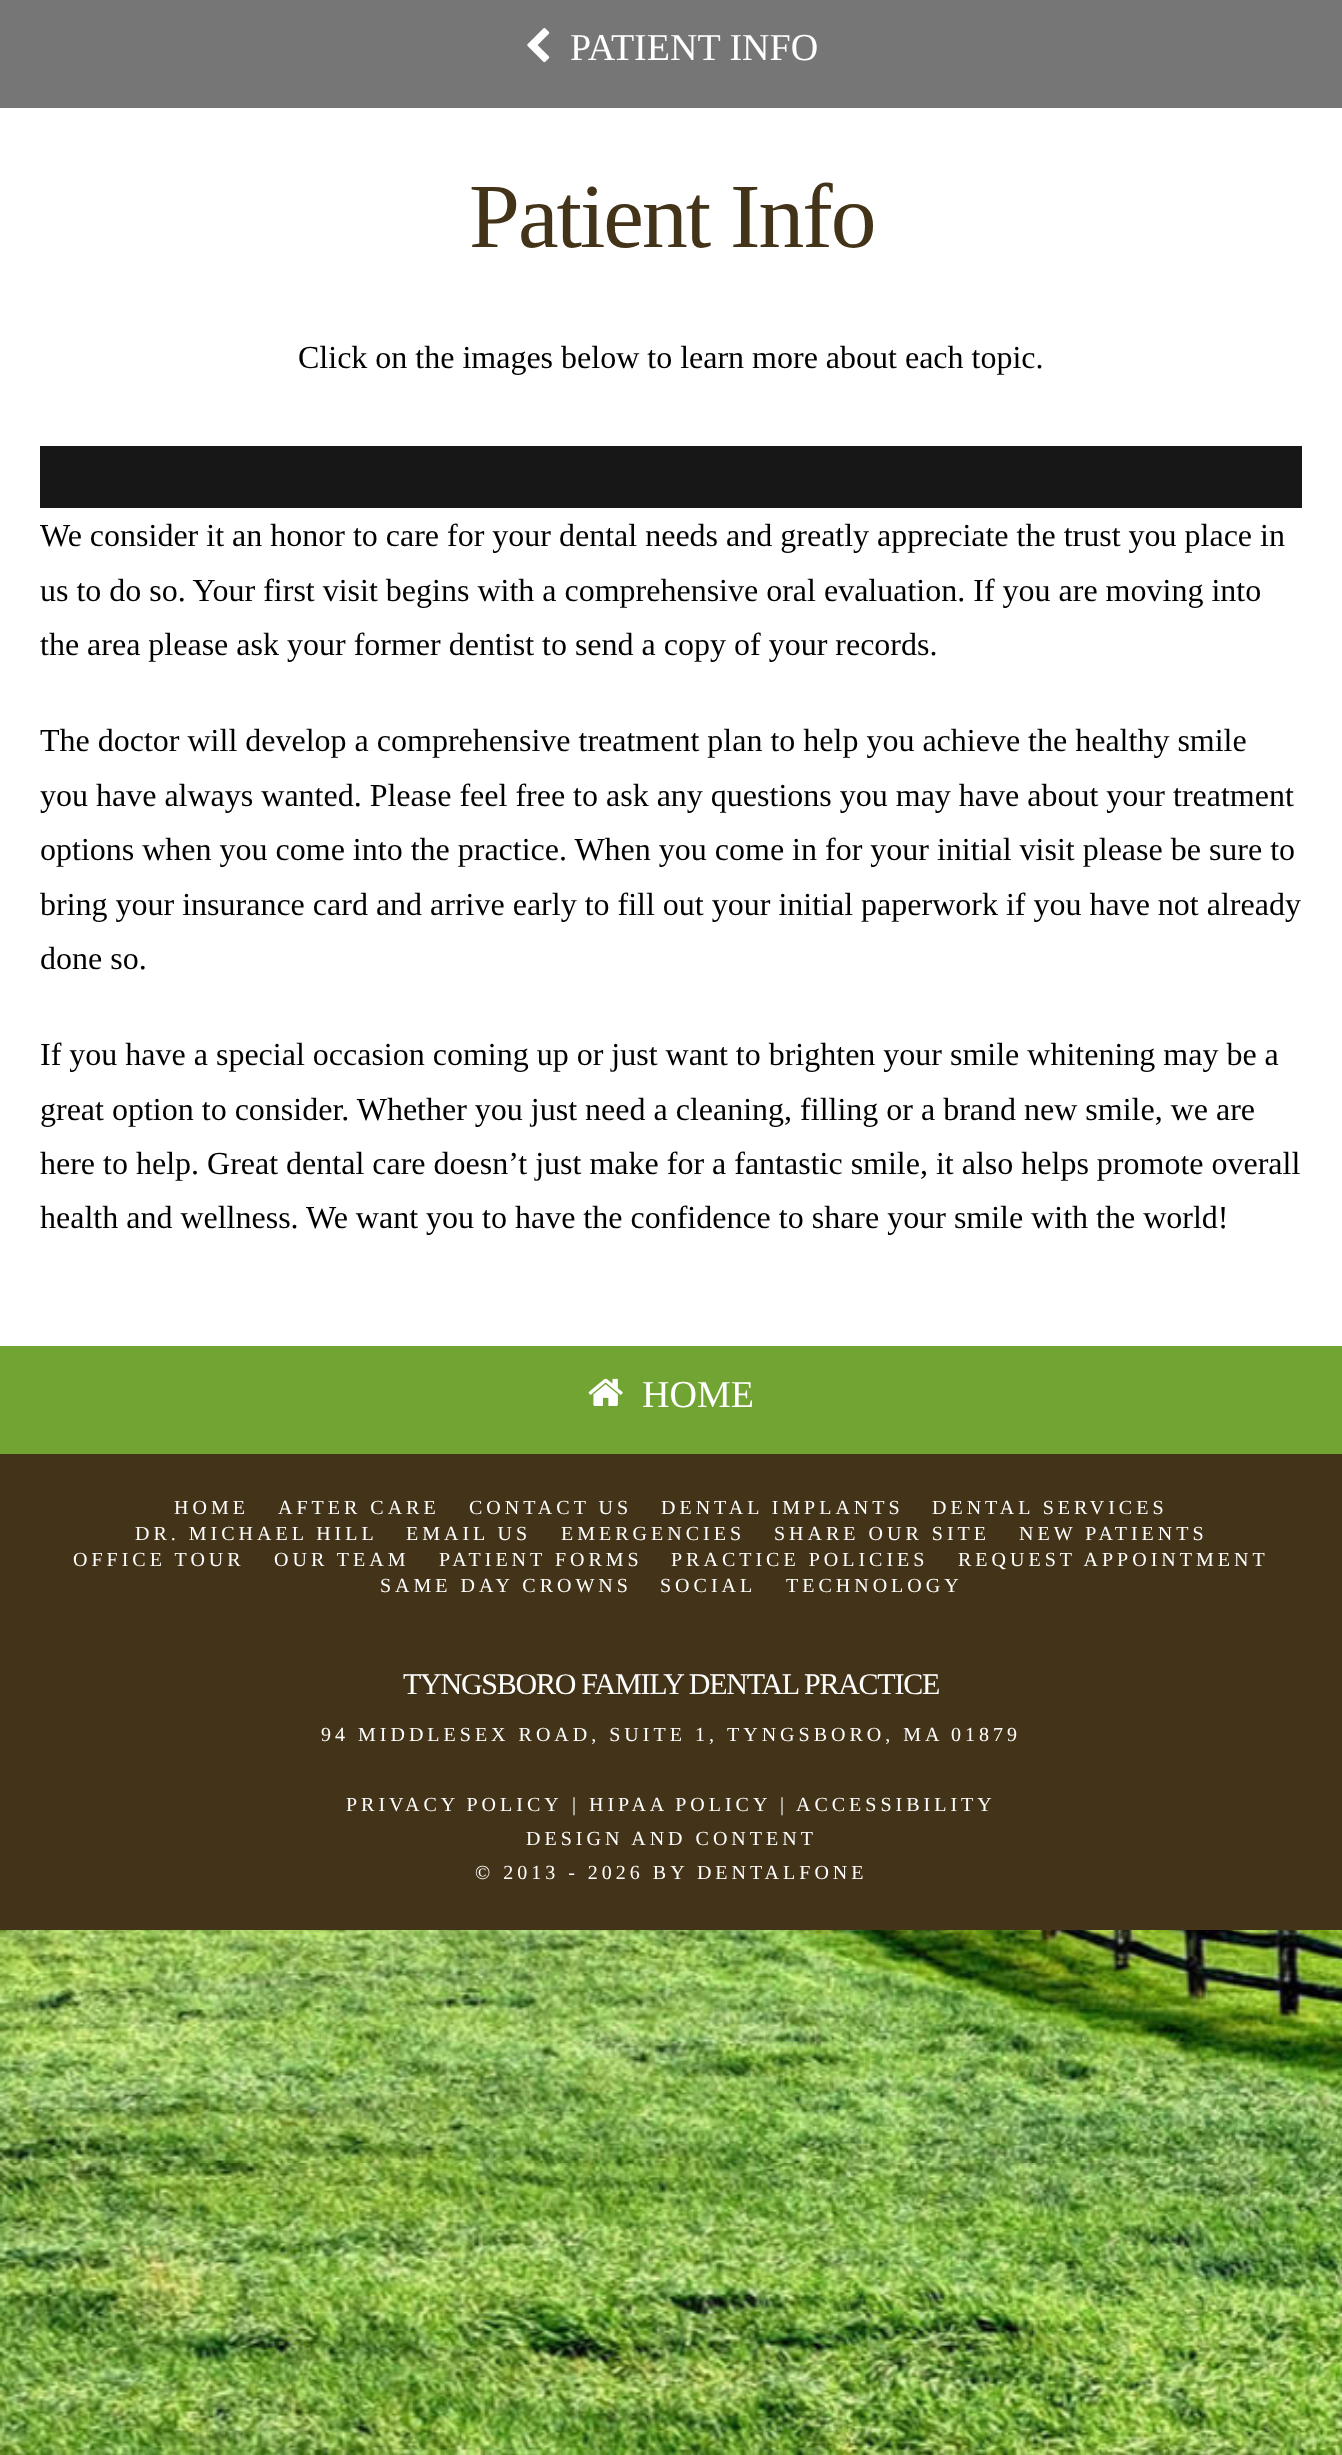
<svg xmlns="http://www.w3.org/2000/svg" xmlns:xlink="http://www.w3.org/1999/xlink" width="1342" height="2455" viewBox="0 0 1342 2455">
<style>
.cls-1{font:38px Liberation Serif;fill:#ffffff}
.cls-2{font:91.5px Liberation Serif;letter-spacing:-2px;fill:#433318}
.cls-3{font:32px Liberation Serif;fill:#000000}
.cls-4{font:20px Liberation Serif;letter-spacing:4px;fill:#ffffff}
.cls-5{font:30px Liberation Serif;letter-spacing:-1.25px;fill:#ffffff}
</style>
<rect width="100%" height="100%" fill="#ffffff"/>
<rect fill="#767676" x="0" y="0" width="1342" height="108"/>
<image xlink:href="image0.png" x="527" y="28" width="23" height="35"/>
<rect fill="#171717" x="40" y="446" width="1262" height="62"/>
<rect fill="#72a434" x="0" y="1346" width="1342" height="108"/>
<image xlink:href="image1.png" x="588" y="1378" width="35" height="28"/>
<rect fill="#433318" x="0" y="1454" width="1342" height="476"/>
<image xlink:href="image2.png" x="0" y="1930" width="1342" height="525"/>
<text class="cls-1" x="570" y="60">PATIENT INFO</text>
<text class="cls-2" x="469" y="247">Patient Info</text>
<text class="cls-3" x="298" y="368">Click on the images below to learn more about each topic.</text>
<text class="cls-3"><tspan x="40" y="546">We consider it an honor to care for your dental needs and greatly appreciate the trust you place in</tspan><tspan x="40" y="601">us to do so. Your first visit begins with a comprehensive oral evaluation. If you are moving into</tspan><tspan x="40" y="655">the area please ask your former dentist to send a copy of your records.</tspan></text>
<text class="cls-3"><tspan x="40" y="751">The doctor will develop a comprehensive treatment plan to help you achieve the healthy smile</tspan><tspan x="40" y="806">you have always wanted. Please feel free to ask any questions you may have about your treatment</tspan><tspan x="40" y="860">options when you come into the practice. When you come in for your initial visit please be sure to</tspan><tspan x="40" y="915">bring your insurance card and arrive early to fill out your initial paperwork if you have not already</tspan><tspan x="40" y="969">done so.</tspan></text>
<text class="cls-3"><tspan x="40" y="1065">If you have a special occasion coming up or just want to brighten your smile whitening may be a</tspan><tspan x="40" y="1120">great option to consider. Whether you just need a cleaning, filling or a brand new smile, we are</tspan><tspan x="40" y="1174">here to help. Great dental care doesn’t just make for a fantastic smile, it also helps promote overall</tspan><tspan x="40" y="1228">health and wellness. We want you to have the confidence to share your smile with the world!</tspan></text>
<text class="cls-1" x="642" y="1407">HOME</text>
<text class="cls-4" x="174" y="1514">HOME</text>
<text class="cls-4" x="278" y="1514">AFTER CARE</text>
<text class="cls-4" x="469" y="1514">CONTACT US</text>
<text class="cls-4" x="661" y="1514">DENTAL IMPLANTS</text>
<text class="cls-4" x="932" y="1514">DENTAL SERVICES</text>
<text class="cls-4" x="135" y="1540">DR. MICHAEL HILL</text>
<text class="cls-4" x="406" y="1540">EMAIL US</text>
<text class="cls-4" x="561" y="1540">EMERGENCIES</text>
<text class="cls-4" x="774" y="1540">SHARE OUR SITE</text>
<text class="cls-4" x="1019" y="1540">NEW PATIENTS</text>
<text class="cls-4" x="73" y="1566">OFFICE TOUR</text>
<text class="cls-4" x="274" y="1566">OUR TEAM</text>
<text class="cls-4" x="439" y="1566">PATIENT FORMS</text>
<text class="cls-4" x="671" y="1566">PRACTICE POLICIES</text>
<text class="cls-4" x="958" y="1566">REQUEST APPOINTMENT</text>
<text class="cls-4" x="380" y="1592">SAME DAY CROWNS</text>
<text class="cls-4" x="660" y="1592">SOCIAL</text>
<text class="cls-4" x="786" y="1592">TECHNOLOGY</text>
<text class="cls-5" x="403" y="1694">TYNGSBORO FAMILY DENTAL PRACTICE</text>
<text class="cls-4" x="321" y="1741">94 MIDDLESEX ROAD, SUITE 1,</text>
<text class="cls-4" x="727" y="1741">TYNGSBORO, MA</text>
<text class="cls-4" x="951" y="1741">01879</text>
<text class="cls-4" x="346" y="1811" word-spacing="-1">PRIVACY POLICY</text>
<text class="cls-4" x="572" y="1811">|</text>
<text class="cls-4" x="589" y="1811" word-spacing="-1">HIPAA POLICY</text>
<text class="cls-4" x="780" y="1811">|</text>
<text class="cls-4" x="796" y="1811">ACCESSIBILITY</text>
<text class="cls-4" x="526" y="1845">DESIGN AND CONTENT</text>
<text class="cls-4" x="475" y="1879">© 2013 - 2026 BY DENTALFONE</text>
</svg>
